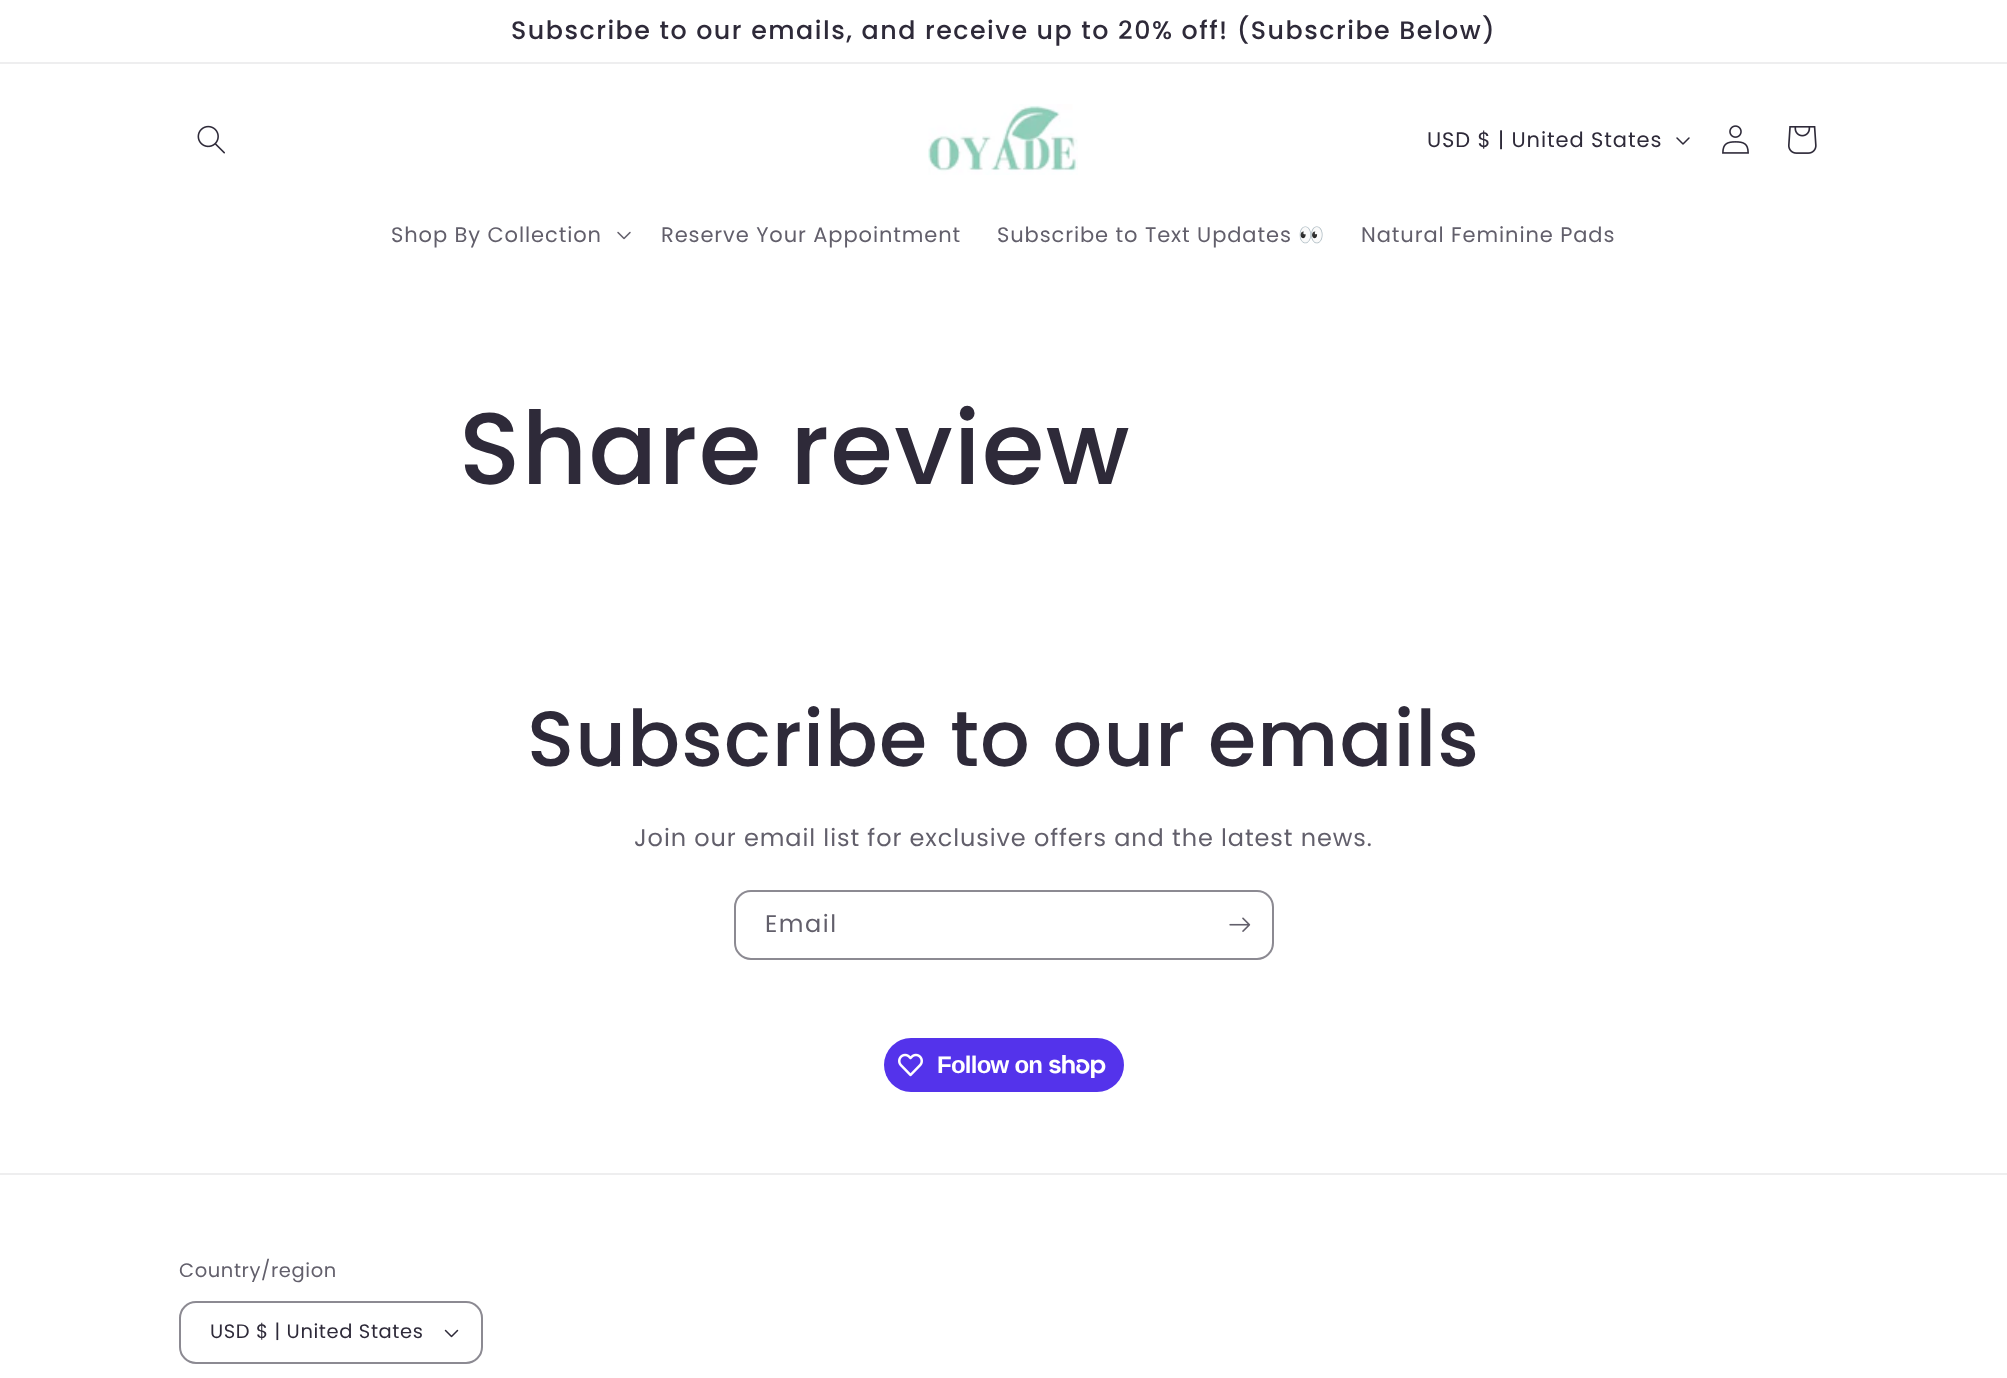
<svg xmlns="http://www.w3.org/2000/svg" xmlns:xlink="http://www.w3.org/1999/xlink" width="2007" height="1378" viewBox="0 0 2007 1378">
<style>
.cls-1{font:500 25.35px Poppins;letter-spacing:1.5px;fill:#2e2a39}
.cls-2{font:21px Poppins;letter-spacing:0.9px;fill:#2e2a39}
.cls-3{font:21px Poppins;letter-spacing:0.9px;fill:#625f6b}
.cls-4{font:21px Noto Color Emoji;letter-spacing:0.9px;fill:#625f6b}
.cls-5{font:500 101.5px Poppins;letter-spacing:1.2px;fill:#2e2a39}
.cls-6{font:500 78px Poppins;letter-spacing:1.2px;fill:#2e2a39}
.cls-7{font:24px Poppins;letter-spacing:0.9px;fill:#625f6b}
.cls-8{font:24px Poppins;letter-spacing:1.5px;fill:#625f6b}
.cls-9{font:bold 24px Liberation Sans;letter-spacing:-0.75px;fill:#ffffff}
.cls-10{font:19.5px Poppins;letter-spacing:0.6px;fill:#625f6b}
.cls-11{font:19.5px Poppins;letter-spacing:0.6px;fill:#2e2a39}
</style>
<rect width="100%" height="100%" fill="#ffffff"/>
<rect fill="#eeeeef" x="0" y="62" width="2007" height="2"/>
<image xlink:href="image0.png" x="197" y="125" width="28" height="29"/>
<image xlink:href="image1.png" x="928" y="104" width="150" height="71"/>
<image xlink:href="image2.png" x="1676" y="137" width="14" height="8"/>
<image xlink:href="image3.png" x="1722" y="125" width="27" height="29"/>
<image xlink:href="image4.png" x="1788" y="126" width="29" height="28"/>
<image xlink:href="image5.png" x="617" y="231" width="14" height="9"/>
<rect fill="none" stroke="#8c8a92" stroke-width="2" x="735" y="891" width="538" height="68" rx="16"/>
<image xlink:href="image6.png" x="1229" y="917" width="22" height="15"/>
<rect fill="#5433eb" x="884" y="1038" width="240" height="54" rx="27"/>
<image xlink:href="image7.png" x="898" y="1053" width="25" height="24"/>
<image xlink:href="image8.png" x="1049" y="1055" width="57" height="23"/>
<rect fill="#eeeeef" x="0" y="1173" width="2007" height="2"/>
<image xlink:href="image9.png" x="444" y="1329" width="15" height="9"/>
<rect fill="none" stroke="#8c8a92" stroke-width="2" x="180" y="1302" width="302" height="61" rx="16"/>
<text class="cls-1" x="511" y="39">Subscribe to our emails, and receive up to 20% off! (Subscribe Below)</text>
<text class="cls-2" x="1427" y="147">USD $ | United States</text>
<text class="cls-3" x="391" y="242">Shop By Collection</text>
<text class="cls-3" x="661" y="242">Reserve Your Appointment</text>
<text class="cls-3" x="997" y="242">Subscribe to Text Updates</text>
<text class="cls-4" x="1298" y="242">👀</text>
<text class="cls-3" x="1361" y="242">Natural Feminine Pads</text>
<text class="cls-5" x="459" y="484">Share review</text>
<text class="cls-6" x="527" y="766">Subscribe to our emails</text>
<text class="cls-7" x="634" y="846">Join our email list for exclusive offers and the latest news.</text>
<text class="cls-8" x="765" y="932">Email</text>
<text class="cls-9" x="937" y="1073">Follow on</text>
<text class="cls-10" x="179" y="1277">Country/region</text>
<text class="cls-11" x="210" y="1338">USD $ | United States</text>
</svg>
